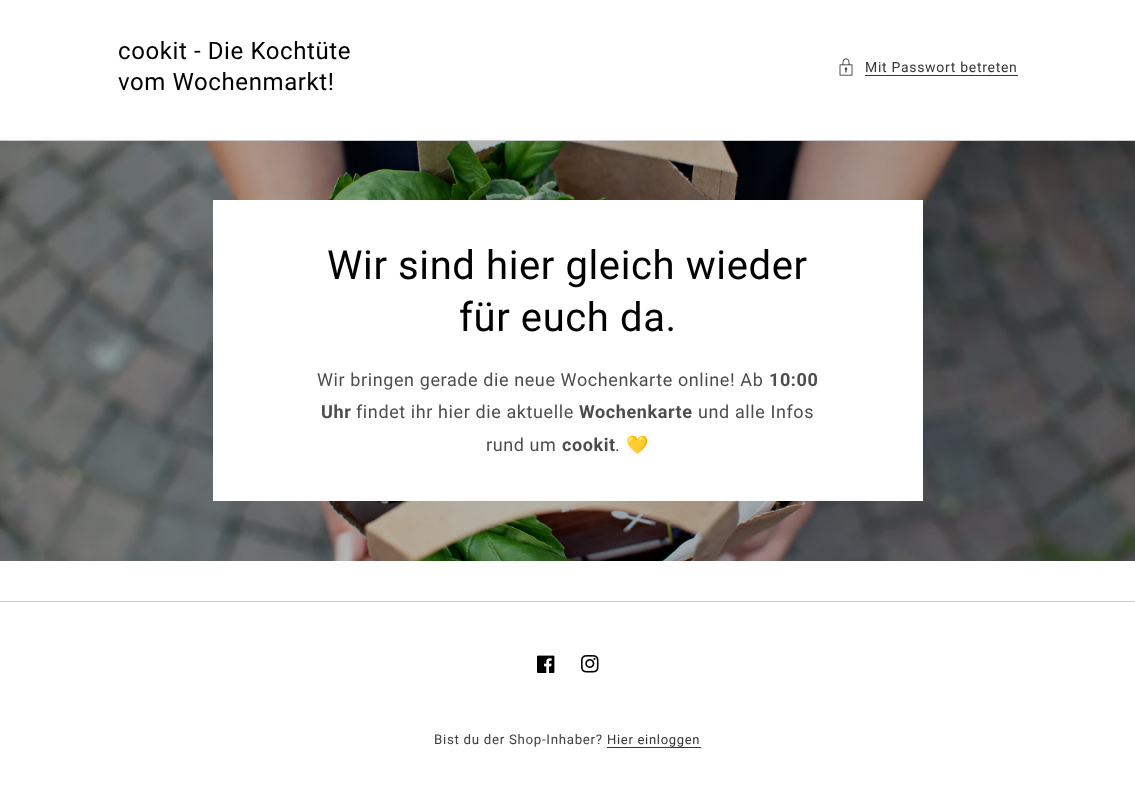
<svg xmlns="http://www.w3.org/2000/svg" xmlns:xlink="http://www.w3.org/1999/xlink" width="1135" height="792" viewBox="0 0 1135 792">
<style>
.cls-1{font:24px Roboto;letter-spacing:0.6px;fill:#000000}
.cls-2{font:14px Roboto;letter-spacing:0.7px;fill:#363636}
.cls-3{font:40px Roboto;letter-spacing:0.6px;fill:#000000}
.cls-4{font:18px Roboto;letter-spacing:0.6px;fill:#4d4d4d}
.cls-5{font:bold 18px Roboto;letter-spacing:0.6px;fill:#4d4d4d}
.cls-6{font:18px Noto Color Emoji;letter-spacing:0.6px;fill:#4d4d4d}
.cls-7{font:13.3px Roboto;letter-spacing:0.7px;fill:#404040}
.cls-8{font:13px Roboto;letter-spacing:0.7px;fill:#363636}
</style>
<rect width="100%" height="100%" fill="#ffffff"/>
<image xlink:href="image0.png" x="839" y="58" width="14" height="18"/>
<rect fill="#363636" x="865" y="75" width="153" height="1"/>
<rect fill="#cccccc" x="0" y="140" width="1135" height="1"/>
<image xlink:href="image1.png" x="0" y="141" width="1135" height="420"/>
<rect fill="#ffffff" x="213" y="200" width="710" height="301"/>
<rect fill="#cccccc" x="0" y="601" width="1135" height="1"/>
<image xlink:href="image2.png" x="537" y="655" width="18" height="18"/>
<image xlink:href="image3.png" x="581" y="655" width="18" height="18"/>
<rect fill="#363636" x="607" y="747" width="94" height="1"/>
<text class="cls-1"><tspan x="118" y="59">cookit - Die Kochtüte</tspan><tspan x="118" y="90">vom Wochenmarkt!</tspan></text>
<text class="cls-2" x="865" y="72">Mit Passwort betreten</text>
<text class="cls-3" x="327" y="279">Wir sind hier gleich wieder</text>
<text class="cls-3" x="459" y="331">für euch da.</text>
<text class="cls-4" x="317" y="386">Wir bringen gerade die neue Wochenkarte online! Ab</text>
<text class="cls-5" x="769" y="386">10:00</text>
<text class="cls-5" x="321" y="418">Uhr</text>
<text class="cls-4" x="356" y="418">findet ihr hier die aktuelle</text>
<text class="cls-5" x="579" y="418">Wochenkarte</text>
<text class="cls-4" x="698" y="418">und alle Infos</text>
<text class="cls-4" x="486" y="451">rund um</text>
<text class="cls-5" x="562" y="451">cookit</text>
<text class="cls-4" x="615" y="451">.</text>
<text class="cls-6" x="626" y="451">💛</text>
<text class="cls-7" x="434" y="744">Bist du der Shop-Inhaber?</text>
<text class="cls-8" x="607" y="744">Hier einloggen</text>
</svg>
